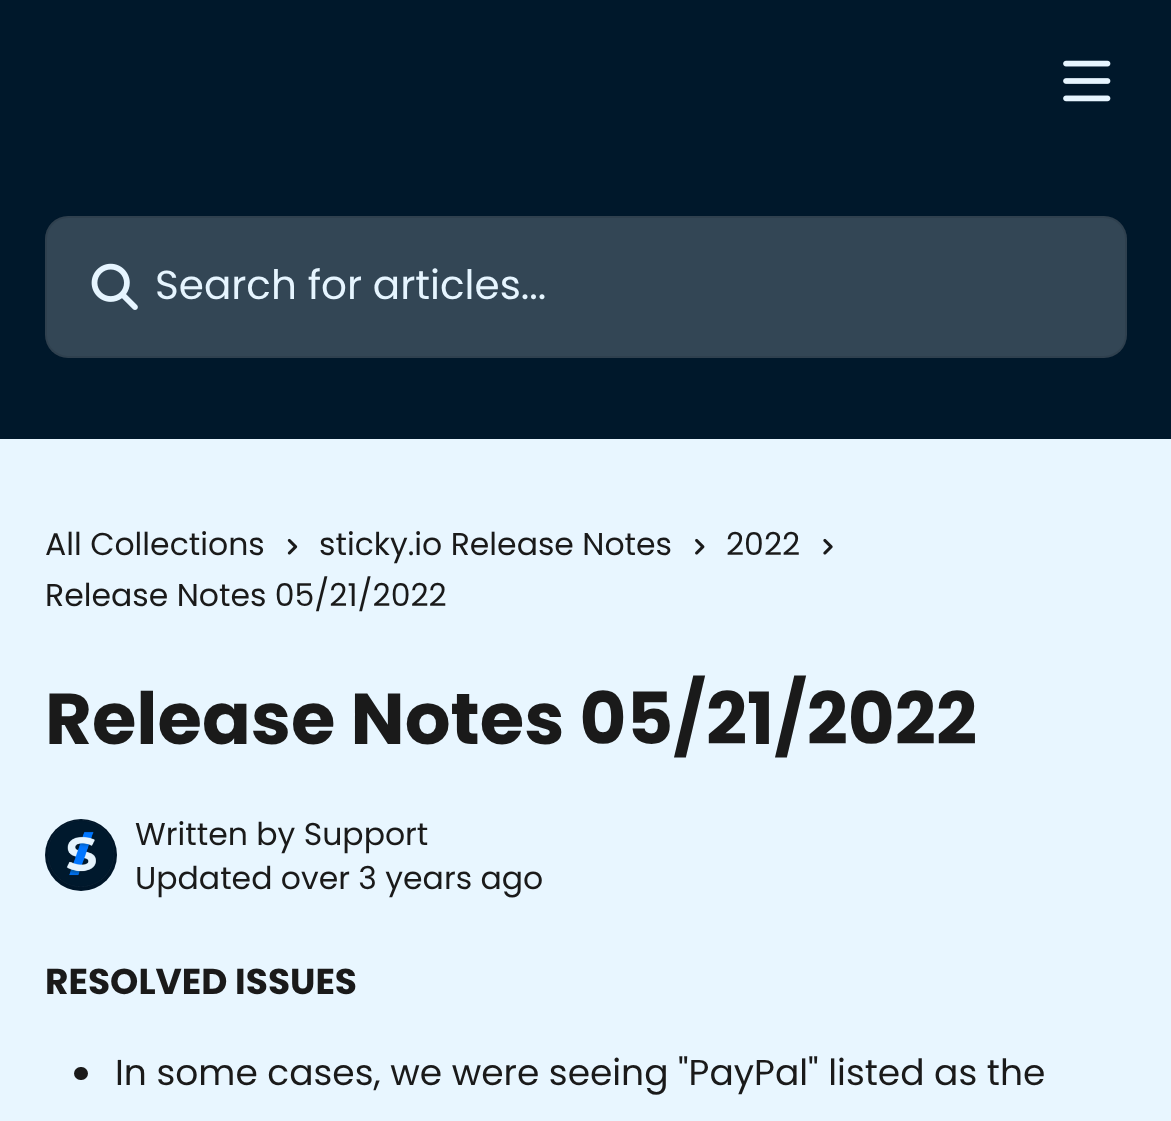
<svg xmlns="http://www.w3.org/2000/svg" xmlns:xlink="http://www.w3.org/1999/xlink" width="1171" height="1121" viewBox="0 0 1171 1121">
<style>
.cls-1{font:40.5px Poppins;fill:#e6f5ff}
.cls-2{font:31.5px Poppins;fill:#1a1a1a}
.cls-3{font:bold 72px Poppins;fill:#1a1a1a}
.cls-4{font:bold 36px Poppins;fill:#1a1a1a}
.cls-5{font:36px Poppins;fill:#1a1a1a}
</style>
<rect width="100%" height="100%" fill="#e8f6ff"/>
<rect fill="#00182b" x="0" y="0" width="1171" height="439"/>
<image xlink:href="image0.png" x="1063" y="60" width="48" height="42"/>
<rect fill="#334655" x="45" y="216" width="1082" height="142" rx="23"/>
<rect fill="none" stroke="#000000" stroke-opacity="0.08" stroke-width="2" x="46" y="217" width="1080" height="140" rx="22"/>
<image xlink:href="image1.png" x="91" y="263" width="47" height="47"/>
<image xlink:href="image2.png" x="287" y="538" width="11" height="17"/>
<image xlink:href="image3.png" x="695" y="538" width="10" height="17"/>
<image xlink:href="image4.png" x="823" y="538" width="10" height="17"/>
<circle fill="#001629" cx="81" cy="855" r="36"/>
<image xlink:href="image5.png" x="48" y="820" width="66" height="67"/>
<rect fill="#1a1a1a" x="74" y="1067" width="14" height="13" rx="6.5"/>
<text class="cls-1" x="155" y="299">Search for articles...</text>
<text class="cls-2" x="45" y="555">All Collections</text>
<text class="cls-2" x="319" y="555">sticky.io Release Notes</text>
<text class="cls-2" x="726" y="555">2022</text>
<text class="cls-2" x="45" y="606">Release Notes 05/21/2022</text>
<text class="cls-3" x="45" y="744">Release Notes 05/21/2022</text>
<text class="cls-2"><tspan x="135" y="845">Written by Support</tspan><tspan x="135" y="889">Updated over 3 years ago</tspan></text>
<text class="cls-4" x="45" y="994">RESOLVED ISSUES</text>
<text class="cls-5" x="115" y="1085">In some cases, we were seeing "PayPal" listed as the</text>
</svg>
